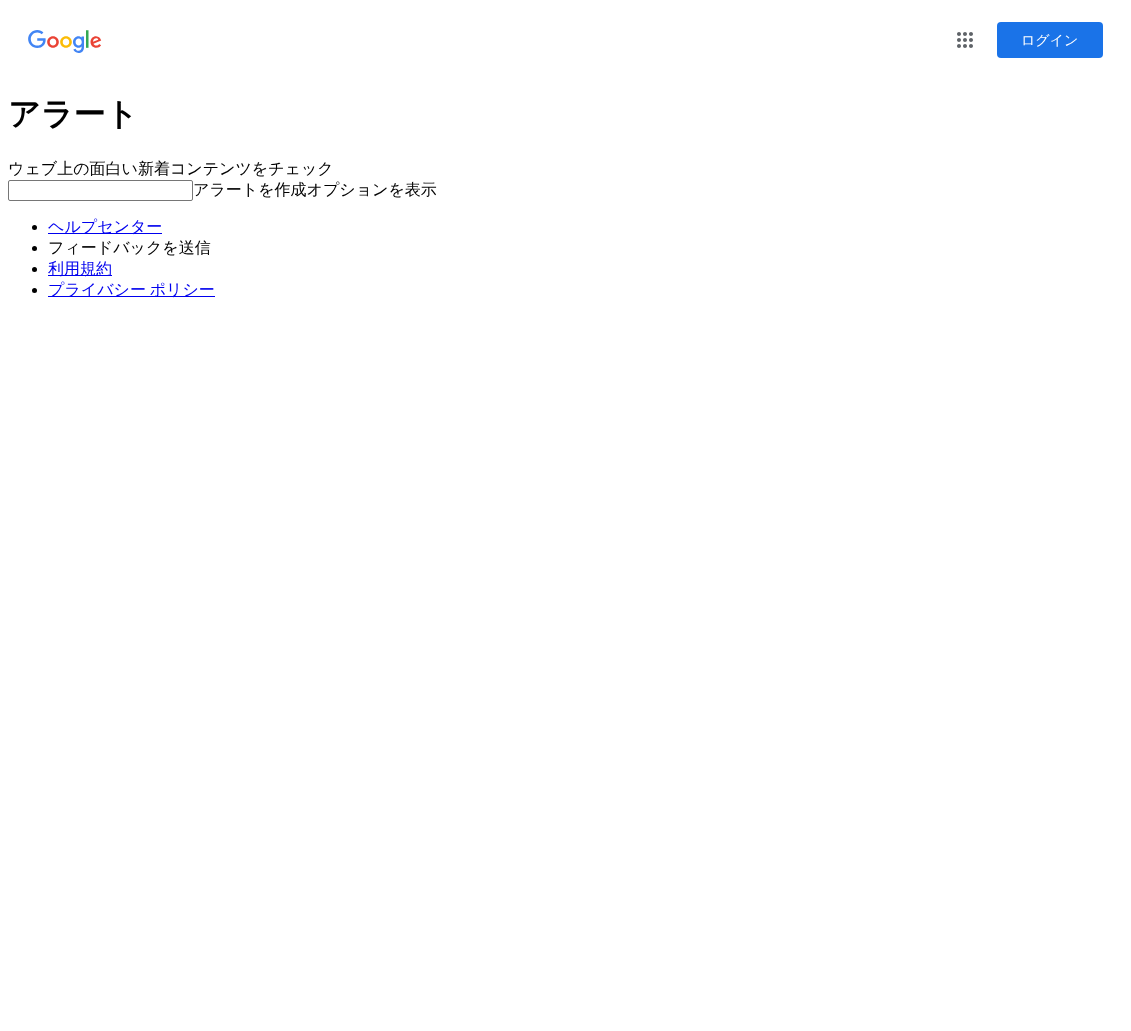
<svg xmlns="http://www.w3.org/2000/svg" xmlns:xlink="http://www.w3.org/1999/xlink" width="1131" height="1031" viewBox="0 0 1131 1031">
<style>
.cls-1{font:500 14px WenQuanYi Zen Hei;fill:#ffffff}
.cls-2{font:bold 32px WenQuanYi Zen Hei;fill:#000000}
.cls-3{font:500 16px WenQuanYi Zen Hei;fill:#000000}
.cls-4{font:500 16px WenQuanYi Zen Hei;fill:#0000ee}
</style>
<rect width="100%" height="100%" fill="#ffffff"/>
<image xlink:href="image0.png" x="28" y="30" width="74" height="23"/>
<image xlink:href="image1.png" x="957" y="32" width="16" height="16"/>
<rect fill="#1a73e8" x="997" y="22" width="106" height="36" rx="4"/>
<rect fill="none" stroke="#767676" x="8.5" y="180.5" width="184" height="20" rx="1.5"/>
<circle fill="#000000" cx="34.5" cy="227.5" r="2.5"/>
<rect fill="#0000ee" x="48" y="233" width="114" height="1"/>
<circle fill="#000000" cx="34.5" cy="248.5" r="2.5"/>
<circle fill="#000000" cx="34.5" cy="269.5" r="2.5"/>
<rect fill="#0000ee" x="48" y="275" width="64" height="1"/>
<circle fill="#000000" cx="34.5" cy="290.5" r="2.5"/>
<rect fill="#0000ee" x="48" y="296" width="167" height="1"/>
<text class="cls-1" x="1021" y="45">ログイン</text>
<text class="cls-2" x="8" y="125">アラート</text>
<text class="cls-3" x="8" y="174">ウェブ上の面白い新着コンテンツをチェック</text>
<text class="cls-3" x="193" y="195">アラートを作成オプションを表示</text>
<text class="cls-4" x="48" y="232">ヘルプセンター</text>
<text class="cls-3" x="48" y="253">フィードバックを送信</text>
<text class="cls-4"><tspan x="48" y="274">利用規約</tspan><tspan x="48" y="295" word-spacing="-1">プライバシー ポリシー</tspan></text>
</svg>
